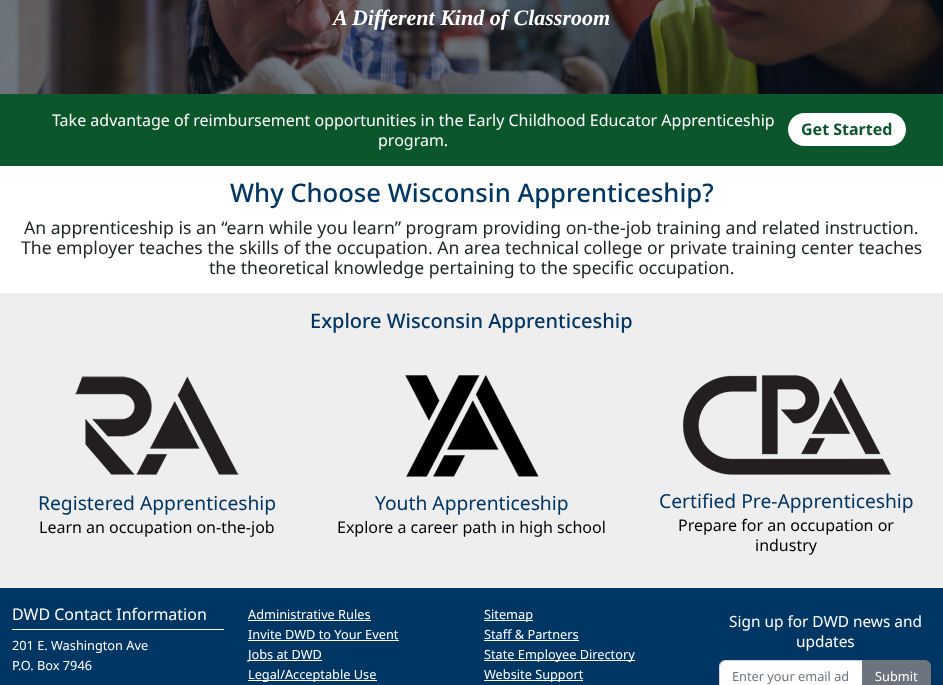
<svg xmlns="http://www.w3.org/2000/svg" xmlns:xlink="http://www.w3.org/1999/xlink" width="943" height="685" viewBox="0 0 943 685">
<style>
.cls-1{font:italic bold 22px Liberation Serif;fill:#ffffff}
.cls-2{font:16px Noto Sans;fill:#ffffff}
.cls-3{font:bold 16px Noto Sans;fill:#0b562b}
.cls-4{font:500 25.6px Noto Sans;fill:#003663}
.cls-5{font:17.6px Noto Sans;fill:#212529}
.cls-6{font:500 20px Noto Sans;fill:#003663}
.cls-7{font:19.25px Noto Sans;fill:#003663}
.cls-8{font:16px Noto Sans;fill:#000000}
.cls-9{font:12.75px Noto Sans;fill:#ffffff}
.cls-10{font:15.4px Noto Sans;fill:#ffffff}
.cls-11{font:12.75px Noto Sans;fill:#6c757d}
</style>
<rect width="100%" height="100%" fill="#ffffff"/>
<image xlink:href="image0.png" x="0" y="0" width="943" height="94"/>
<rect fill="#0b562b" x="0" y="94" width="943" height="72"/>
<rect fill="#ffffff" x="788" y="113" width="118" height="33" rx="16.5"/>
<rect fill="#eeeeee" x="0" y="293" width="943" height="295"/>
<image xlink:href="image1.png" x="75" y="376" width="164" height="99"/>
<image xlink:href="image2.png" x="405" y="375" width="134" height="102"/>
<image xlink:href="image3.png" x="683" y="375" width="208" height="100"/>
<rect fill="#003663" x="0" y="588" width="943" height="97"/>
<rect fill="#ffffff" x="12" y="629" width="212" height="1"/>
<rect fill="#ffffff" x="248" y="620" width="123" height="1"/>
<rect fill="#ffffff" x="248" y="640" width="151" height="1"/>
<rect fill="#ffffff" x="248" y="660" width="74" height="1"/>
<rect fill="#ffffff" x="248" y="680" width="129" height="1"/>
<rect fill="#ffffff" x="484" y="620" width="49" height="1"/>
<rect fill="#ffffff" x="484" y="640" width="95" height="1"/>
<rect fill="#ffffff" x="484" y="660" width="151" height="1"/>
<rect fill="#ffffff" x="484" y="680" width="99" height="1"/>
<path fill="#ffffff" d="M725 661H862V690H725C722 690 720 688 720 685V666C720 663 722 661 725 661Z"/>
<path fill="none" stroke="#ced4da" d="M725 660.5H862.5V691.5H725C722 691.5 719.5 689 719.5 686V666C719.5 663 722 660.5 725 660.5Z"/>
<path fill="#6c757d" stroke="#6c757d" d="M862.5 660.5H925C928 660.5 930.5 663 930.5 666V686C930.5 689 928 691.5 925 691.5H862.5Z"/>
<text class="cls-1" x="333" y="25">A Different Kind of Classroom</text>
<text class="cls-2" x="52" y="126">Take advantage of reimbursement opportunities in the Early Childhood Educator Apprenticeship</text>
<text class="cls-2" x="378" y="146">program.</text>
<text class="cls-3" x="801" y="135">Get Started</text>
<text class="cls-4" x="230" y="202">Why Choose Wisconsin Apprenticeship?</text>
<text class="cls-5" x="24" y="234">An apprenticeship is an “earn while you learn” program providing on-the-job training and related instruction.</text>
<text class="cls-5" x="21" y="254">The employer teaches the skills of the occupation. An area technical college or private training center teaches</text>
<text class="cls-5" x="209" y="274">the theoretical knowledge pertaining to the specific occupation.</text>
<text class="cls-6" x="310" y="328">Explore Wisconsin Apprenticeship</text>
<text class="cls-7" x="38" y="510">Registered Apprenticeship</text>
<text class="cls-8" x="39" y="533">Learn an occupation on-the-job</text>
<text class="cls-7" x="375" y="510">Youth Apprenticeship</text>
<text class="cls-8" x="337" y="533">Explore a career path in high school</text>
<text class="cls-7" x="659" y="508">Certified Pre-Apprenticeship</text>
<text class="cls-8" x="678" y="531">Prepare for an occupation or</text>
<text class="cls-8" x="755" y="551">industry</text>
<text class="cls-2" x="12" y="620">DWD Contact Information</text>
<text class="cls-9"><tspan x="12" y="650">201 E. Washington Ave</tspan><tspan x="12" y="670">P.O. Box 7946</tspan></text>
<text class="cls-9"><tspan x="248" y="619">Administrative Rules</tspan><tspan x="248" y="639">Invite DWD to Your Event</tspan><tspan x="248" y="659">Jobs at DWD</tspan><tspan x="248" y="679">Legal/Acceptable Use</tspan></text>
<text class="cls-9"><tspan x="484" y="619">Sitemap</tspan><tspan x="484" y="639">Staff &amp; Partners</tspan><tspan x="484" y="659">State Employee Directory</tspan><tspan x="484" y="679">Website Support</tspan></text>
<text class="cls-10" x="729" y="627">Sign up for DWD news and</text>
<text class="cls-10" x="796" y="647">updates</text>
<text class="cls-11" x="732" y="681">Enter your email ad</text>
<text class="cls-9" x="875" y="681">Submit</text>
</svg>
